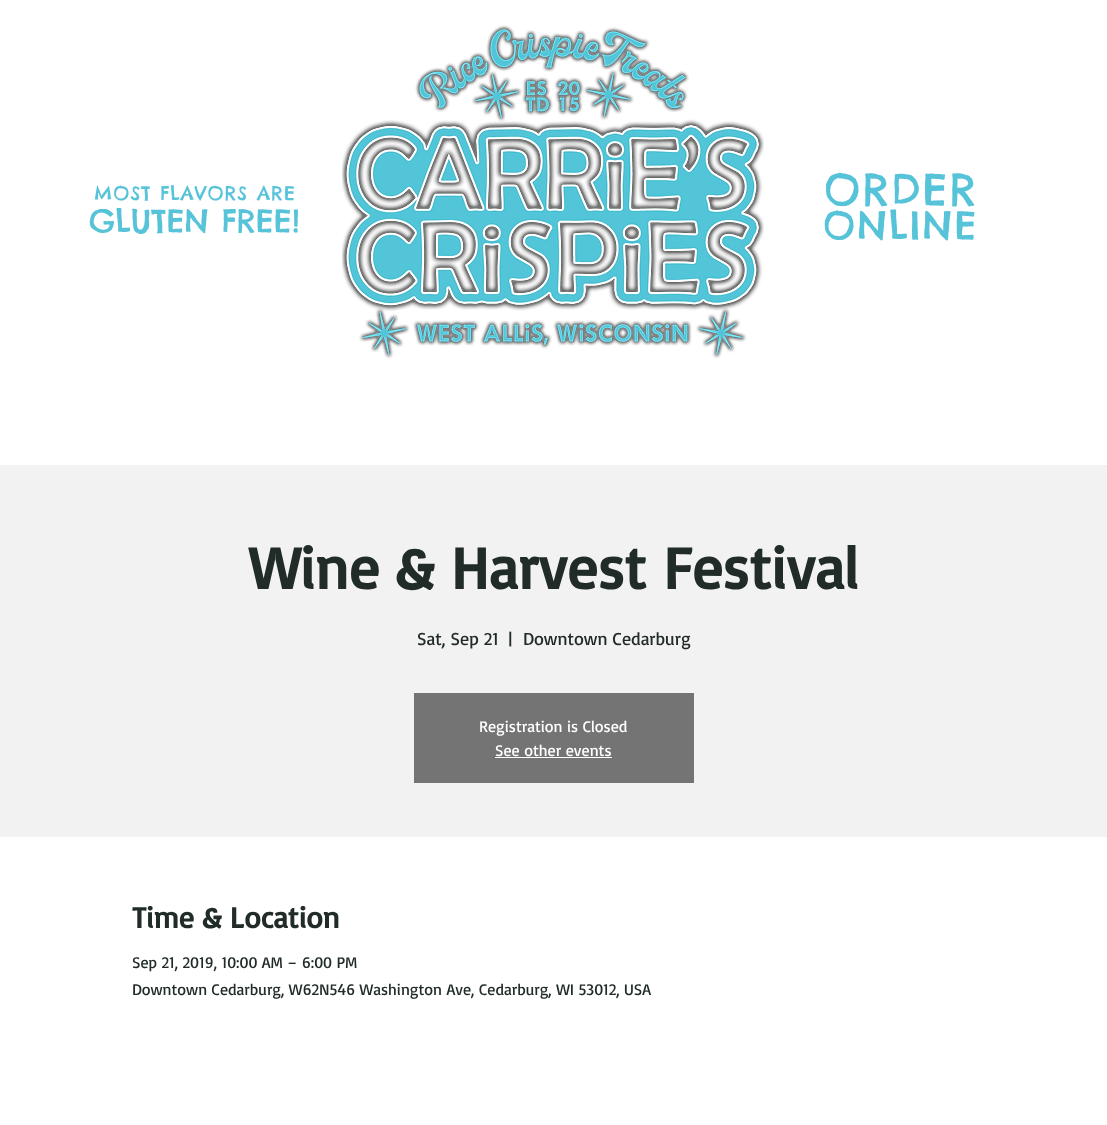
<svg xmlns="http://www.w3.org/2000/svg" xmlns:xlink="http://www.w3.org/1999/xlink" width="1107" height="1125" viewBox="0 0 1107 1125">
<style>
.cls-1{font:19px Chelsea Market;letter-spacing:1px;fill:#57c3d9}
.cls-2{font:31px Chelsea Market;fill:#57c3d9}
.cls-3{font:43px Chelsea Market;letter-spacing:2px;fill:#57c3d9}
.cls-4{font:38px Chelsea Market;letter-spacing:2px;fill:#57c3d9}
.cls-5{font:bold 60px Basic;fill:#212c29}
.cls-6{font:18px Basic;fill:#212c29}
.cls-7{font:16px Basic;fill:#ffffff}
.cls-8{font:bold 30px Basic;fill:#212c29}
.cls-9{font:16px Basic;fill:#212c29}
</style>
<rect width="100%" height="100%" fill="#ffffff"/>
<image xlink:href="image0.png" x="342" y="25" width="422" height="334"/>
<rect fill="#f2f2f2" x="0" y="465" width="1107" height="372"/>
<rect fill="#747474" x="414" y="693" width="280" height="90"/>
<rect fill="#ffffff" x="495" y="757" width="117" height="1"/>
<text class="cls-1" x="94" y="200">MOST FLAVORS ARE</text>
<text class="cls-2" x="89" y="232">GLUTEN FREE!</text>
<text class="cls-3" x="824" y="205">ORDER</text>
<text class="cls-4" x="823" y="239">ONLINE</text>
<text class="cls-5" x="249" y="589">Wine &amp; Harvest Festival</text>
<text class="cls-6" x="417" y="645">Sat, Sep 21</text>
<text class="cls-6" x="508" y="645">|</text>
<text class="cls-6" x="523" y="645">Downtown Cedarburg</text>
<text class="cls-7" x="479" y="732">Registration is Closed</text>
<text class="cls-7" x="495" y="756">See other events</text>
<text class="cls-8" x="132" y="928">Time &amp; Location</text>
<text class="cls-9"><tspan x="132" y="968">Sep 21, 2019, 10:00 AM – 6:00 PM</tspan><tspan x="132" y="995">Downtown Cedarburg, W62N546 Washington Ave, Cedarburg, WI 53012, USA</tspan></text>
</svg>
